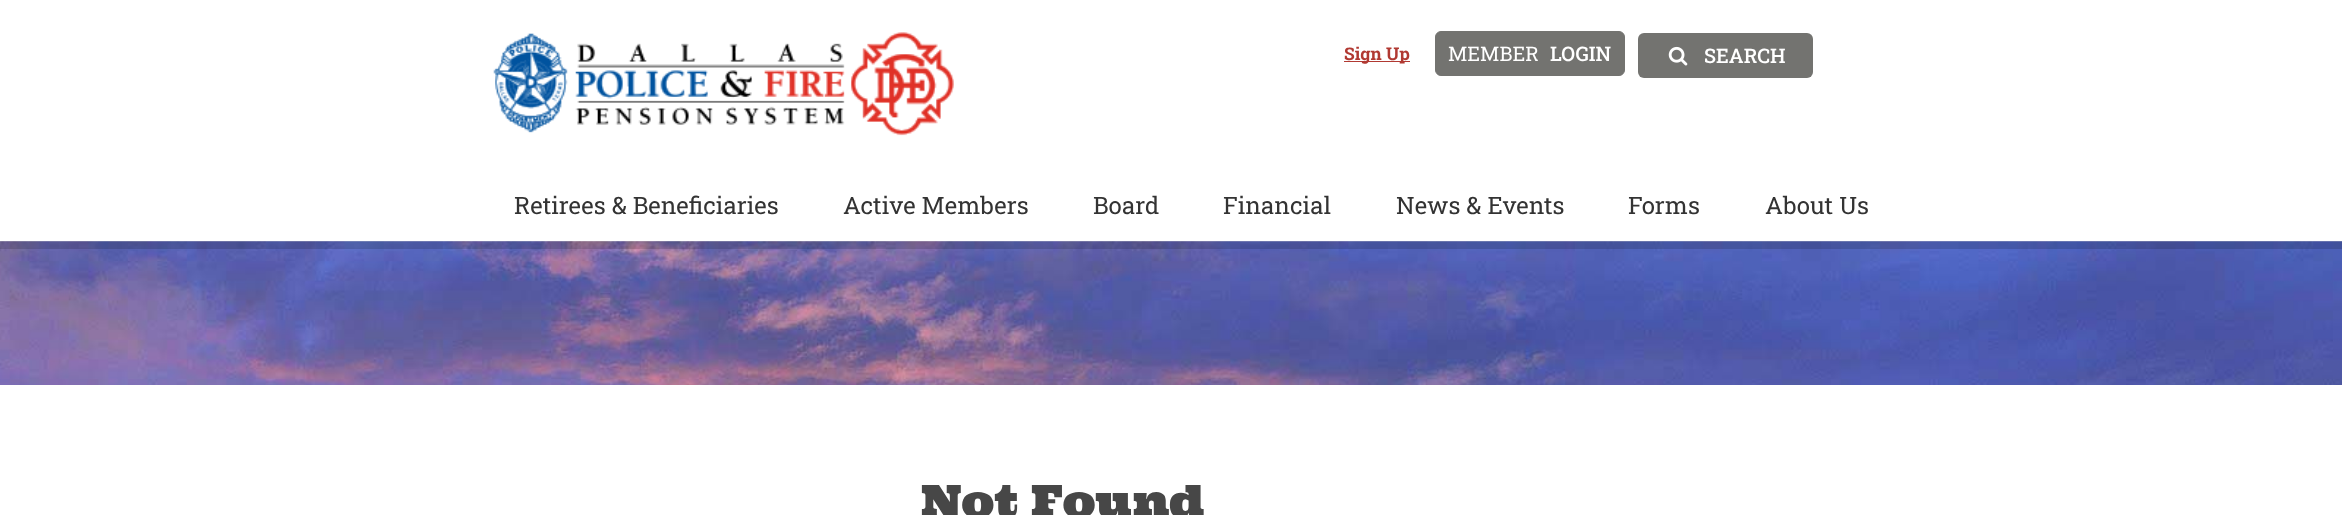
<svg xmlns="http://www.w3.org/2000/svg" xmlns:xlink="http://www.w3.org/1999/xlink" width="2342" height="515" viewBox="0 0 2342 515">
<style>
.cls-1{font:bold 17.5px Roboto Slab;fill:#b13932}
.cls-2{font:20px Roboto Slab;fill:#ffffff}
.cls-3{font:500 20px Roboto Slab;fill:#ffffff}
.cls-4{font:24px Roboto Slab;fill:#333333}
.cls-5{font:44.5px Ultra;fill:#474747}
</style>
<rect width="100%" height="100%" fill="#ffffff"/>
<image xlink:href="image2.png" x="0" y="241" width="2342" height="144"/>
<path fill="#000000" fill-opacity="0.15" d="M0 241V249H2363V8H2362V241Z"/>
<image xlink:href="image0.png" x="493" y="32" width="461" height="104"/>
<rect fill="#b13932" x="1344" y="61" width="66" height="1"/>
<rect fill="#737370" stroke="#737370" x="1435.5" y="31.5" width="189" height="44" rx="5.5"/>
<rect fill="#737370" x="1638" y="33" width="175" height="45" rx="6"/>
<image xlink:href="image1.png" x="1668" y="46" width="20" height="20"/>
<text class="cls-1" x="1344" y="60">Sign Up</text>
<text class="cls-2" x="1448" y="61">MEMBER</text>
<text class="cls-3" x="1550" y="61">LOGIN</text>
<text class="cls-3" x="1704" y="63">SEARCH</text>
<text class="cls-4" x="514" y="214">Retirees &amp; Beneficiaries</text>
<text class="cls-4" x="843" y="214">Active Members</text>
<text class="cls-4" x="1093" y="214">Board</text>
<text class="cls-4" x="1223" y="214">Financial</text>
<text class="cls-4" x="1396" y="214">News &amp; Events</text>
<text class="cls-4" x="1628" y="214">Forms</text>
<text class="cls-4" x="1765" y="214">About Us</text>
<text class="cls-5" x="921" y="517">Not Found</text>
</svg>
